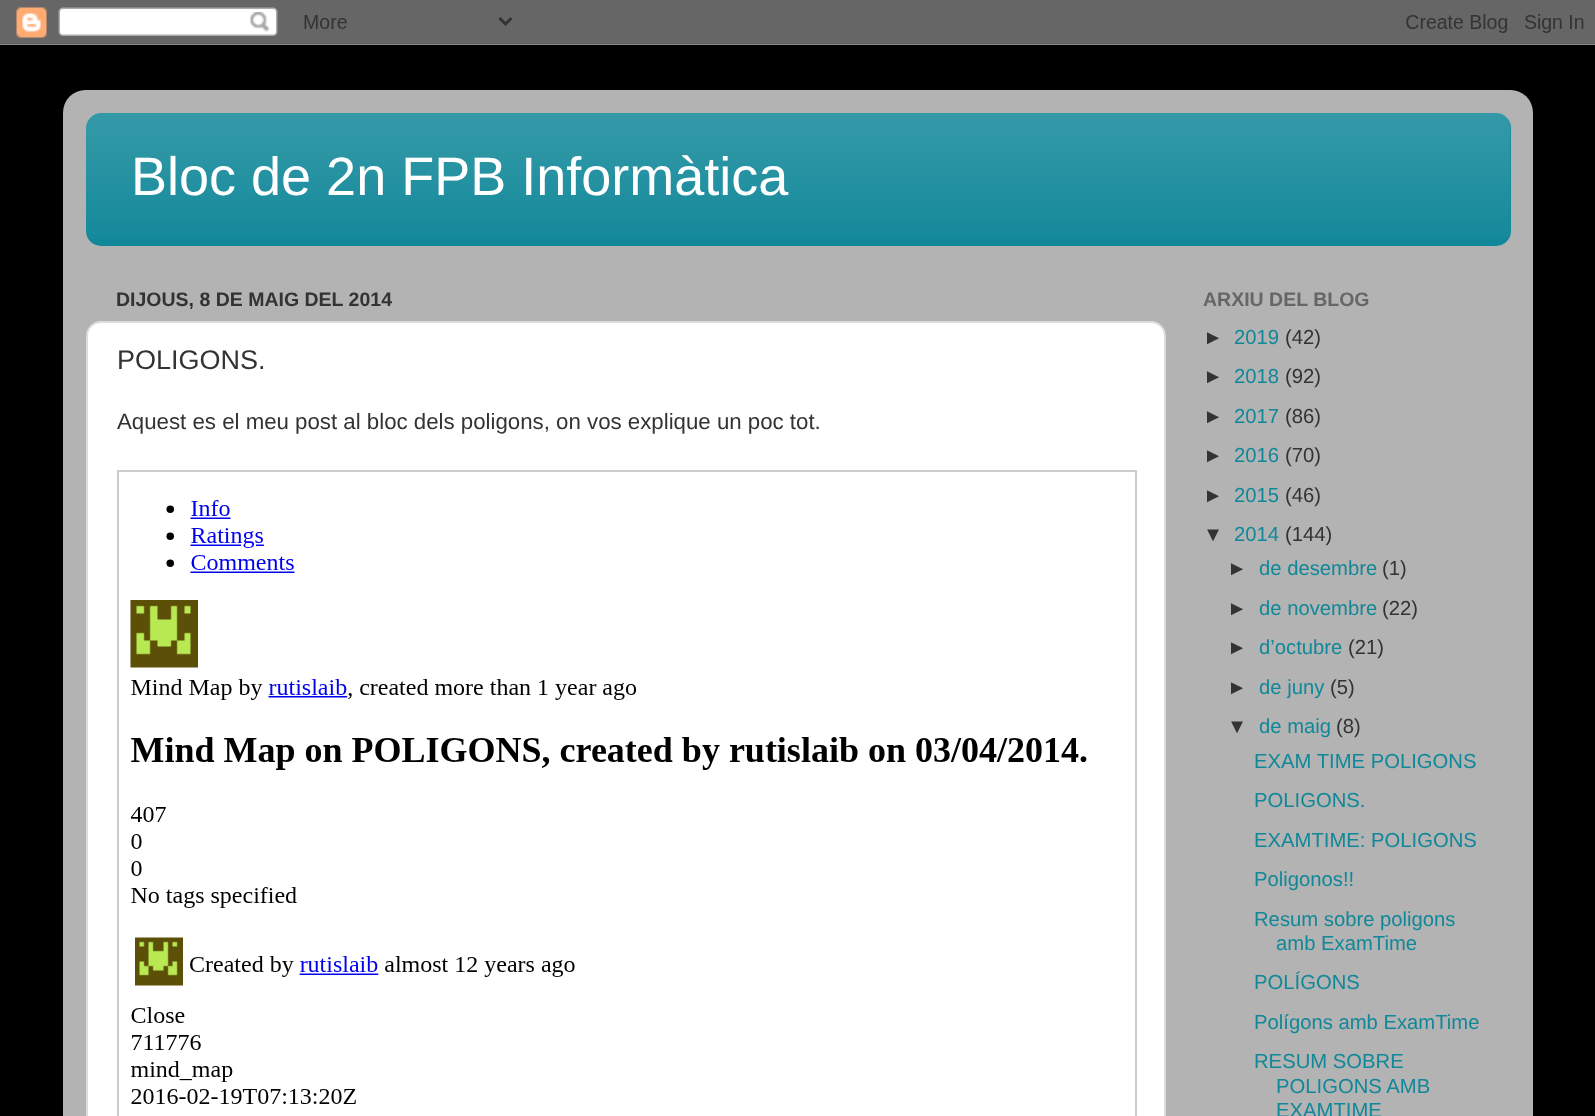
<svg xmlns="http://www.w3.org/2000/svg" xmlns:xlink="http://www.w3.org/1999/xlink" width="1595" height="1116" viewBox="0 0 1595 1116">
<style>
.cls-1{font:54px Liberation Sans;fill:#ffffff}
.cls-2{font:bold 19.5px Liberation Sans;fill:#333333}
.cls-3{font:27px Liberation Sans;fill:#333333}
.cls-4{font:22.25px Liberation Sans;fill:#333333}
.cls-5{font:bold 19.5px Liberation Sans;fill:#666666}
.cls-6{font:20.25px Liberation Sans;fill:#333333}
.cls-7{font:20.25px Liberation Sans;fill:#118899}
</style>
<rect width="100%" height="100%" fill="#000000"/>
<image xlink:href="image0.png" x="0" y="0" width="1595" height="45"/>
<image xlink:href="image1.png" x="63" y="90" width="1470" height="1026"/>
<rect fill="#118899" x="86" y="113" width="1425" height="133" rx="15"/>
<image xlink:href="image2.png" x="86" y="113" width="1425" height="125"/>
<rect fill="#ffffff" stroke="#dddddd" stroke-width="2" x="87" y="322" width="1078" height="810" rx="14"/>
<rect fill="none" stroke="#cccccc" stroke-width="2" x="118" y="471" width="1018" height="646"/>
<image xlink:href="image3.png" x="130" y="500" width="957" height="604"/>
<text class="cls-1" x="131" y="195">Bloc de 2n FPB Informàtica</text>
<text class="cls-2" x="116" y="306">DIJOUS, 8 DE MAIG DEL 2014</text>
<text class="cls-3" x="117" y="369">POLIGONS.</text>
<text class="cls-4" x="117" y="429">Aquest es el meu post al bloc dels poligons, on vos explique un poc tot.</text>
<text class="cls-5" x="1203" y="306">ARXIU DEL BLOG</text>
<text class="cls-6" x="1203" y="344">►</text>
<text class="cls-7" x="1234" y="344">2019</text>
<text class="cls-6" x="1285" y="344">(42)</text>
<text class="cls-6" x="1203" y="383">►</text>
<text class="cls-7" x="1234" y="383">2018</text>
<text class="cls-6" x="1285" y="383">(92)</text>
<text class="cls-6" x="1203" y="423">►</text>
<text class="cls-7" x="1234" y="423">2017</text>
<text class="cls-6" x="1285" y="423">(86)</text>
<text class="cls-6" x="1203" y="462">►</text>
<text class="cls-7" x="1234" y="462">2016</text>
<text class="cls-6" x="1285" y="462">(70)</text>
<text class="cls-6" x="1203" y="502">►</text>
<text class="cls-7" x="1234" y="502">2015</text>
<text class="cls-6" x="1285" y="502">(46)</text>
<text class="cls-6" x="1203" y="541">▼</text>
<text class="cls-7" x="1234" y="541">2014</text>
<text class="cls-6" x="1285" y="541">(144)</text>
<text class="cls-6" x="1227" y="575">►</text>
<text class="cls-7" x="1259" y="575">de desembre</text>
<text class="cls-6" x="1382" y="575">(1)</text>
<text class="cls-6" x="1227" y="615">►</text>
<text class="cls-7" x="1259" y="615">de novembre</text>
<text class="cls-6" x="1382" y="615">(22)</text>
<text class="cls-6" x="1227" y="654">►</text>
<text class="cls-7" x="1259" y="654">d’octubre</text>
<text class="cls-6" x="1348" y="654">(21)</text>
<text class="cls-6" x="1227" y="694">►</text>
<text class="cls-7" x="1259" y="694">de juny</text>
<text class="cls-6" x="1330" y="694">(5)</text>
<text class="cls-6" x="1227" y="733">▼</text>
<text class="cls-7" x="1259" y="733">de maig</text>
<text class="cls-6" x="1336" y="733">(8)</text>
<text class="cls-7"><tspan x="1254" y="768">EXAM TIME POLIGONS</tspan><tspan x="1254" y="807">POLIGONS.</tspan><tspan x="1254" y="847">EXAMTIME: POLIGONS</tspan><tspan x="1254" y="886">Poligonos!!</tspan><tspan x="1254" y="926">Resum sobre poligons</tspan></text>
<text class="cls-7" x="1276" y="950">amb ExamTime</text>
<text class="cls-7"><tspan x="1254" y="989">POLÍGONS</tspan><tspan x="1254" y="1029">Polígons amb ExamTime</tspan><tspan x="1254" y="1068">RESUM SOBRE</tspan></text>
<text class="cls-7"><tspan x="1276" y="1093">POLIGONS AMB</tspan><tspan x="1276" y="1117">EXAMTIME</tspan></text>
</svg>
